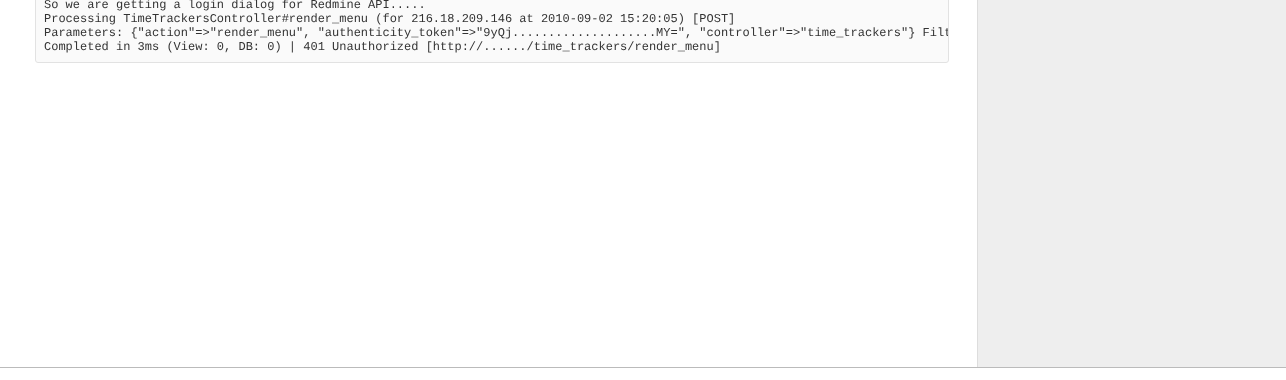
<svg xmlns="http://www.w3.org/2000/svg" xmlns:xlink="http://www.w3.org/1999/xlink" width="1286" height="380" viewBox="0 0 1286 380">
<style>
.cls-1{font:12px Liberation Mono;fill:#333333}
</style>
<defs>
<clipPath id="clip1"><rect x="36" y="-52" width="912" height="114" rx="2"/></clipPath>
</defs>
<rect width="100%" height="100%" fill="#ffffff"/>
<rect fill="#fafafa" stroke="#e2e2e2" x="35.5" y="-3.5" width="913" height="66" rx="2.5"/>
<rect fill="#eeeeee" x="978" y="0" width="308" height="367"/>
<rect fill="#dddddd" x="977" y="0" width="1" height="367"/>
<rect fill="#bbbbbb" x="0" y="367" width="1286" height="1"/>
<text class="cls-1"><tspan x="44" y="8">So we are getting a login dialog for Redmine API.....</tspan><tspan x="44" y="22">Processing TimeTrackersController#render_menu (for 216.18.209.146 at 2010-09-02 15:20:05) [POST]</tspan></text>
<g clip-path="url(#clip1)">
<text class="cls-1" x="44" y="36">Parameters: {"action"=&gt;"render_menu", "authenticity_token"=&gt;"9yQj....................MY=", "controller"=&gt;"time_trackers"} Filt</text>
</g>
<text class="cls-1" x="44" y="50">Completed in 3ms (View: 0, DB: 0) | 401 Unauthorized [http://....../time_trackers/render_menu]</text>
</svg>
